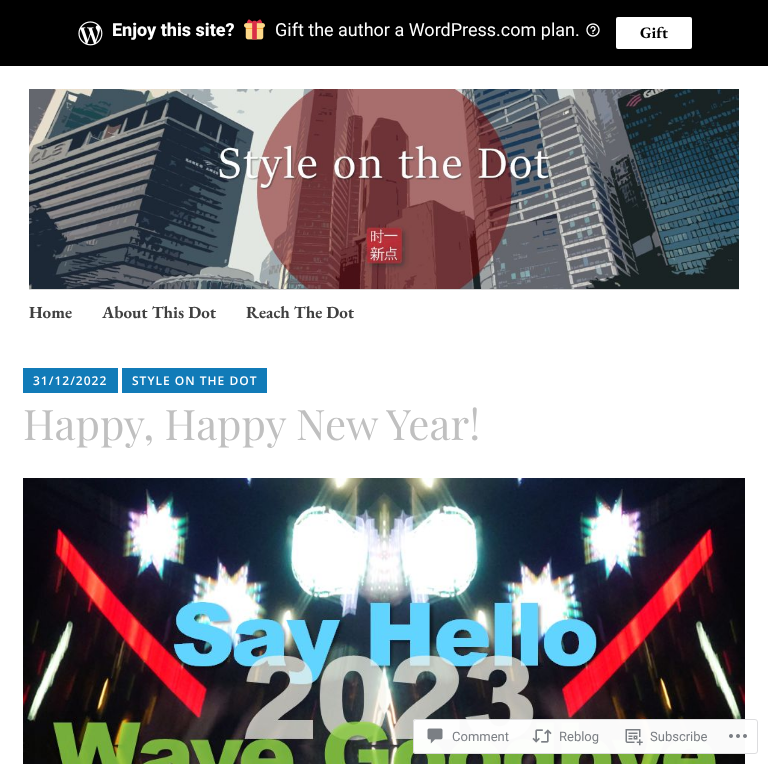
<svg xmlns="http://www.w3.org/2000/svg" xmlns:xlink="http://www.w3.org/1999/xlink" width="768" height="764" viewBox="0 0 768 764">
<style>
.cls-1{font:800 18px Roboto;fill:#ffffff}
.cls-2{font:18px Roboto;fill:#ffffff}
.cls-3{font:bold 16px EB Garamond;fill:#000000}
.cls-4{font:bold 17px EB Garamond;fill:#404040}
.cls-5{font:600 12px Open Sans;letter-spacing:1px;fill:#ffffff}
.cls-6{font:42px Playfair Display;fill:#c0c0c0}
.cls-7{font:13px Roboto;fill:#7b7f84}
</style>
<rect width="100%" height="100%" fill="#ffffff"/>
<rect fill="#000000" x="0" y="0" width="768" height="66"/>
<image xlink:href="image0.png" x="78" y="21" width="25" height="25"/>
<image xlink:href="image1.png" x="244" y="19" width="21" height="21"/>
<image xlink:href="image2.png" x="586" y="23" width="14" height="14"/>
<rect fill="#ffffff" x="616" y="17" width="76" height="32" rx="2"/>
<image xlink:href="image3.png" x="29" y="89" width="710" height="200"/>
<rect fill="#d9d9d9" x="29" y="289" width="710" height="1"/>
<rect fill="#117bb8" x="23" y="368" width="95" height="25"/>
<rect fill="#117bb8" x="122" y="368" width="145" height="25"/>
<image xlink:href="image4.png" x="23" y="478" width="722" height="286"/>
<rect fill="#ffffff" fill-opacity="0.98" x="413" y="719" width="345" height="35" rx="3"/>
<rect fill="none" stroke="#dcdcde" stroke-opacity="0.98" x="413.5" y="719.5" width="344" height="34" rx="2.5"/>
<image xlink:href="image5.png" x="427" y="728" width="16" height="16"/>
<image xlink:href="image6.png" x="532" y="729" width="20" height="14"/>
<image xlink:href="image7.png" x="625" y="729" width="18" height="17"/>
<image xlink:href="image8.png" x="729" y="734" width="18" height="4"/>
<text class="cls-1" x="112" y="36">Enjoy this site?</text>
<text class="cls-2" x="275" y="36">Gift the author a WordPress.com plan.</text>
<text class="cls-3" x="640" y="38">Gift</text>
<text class="cls-4" x="29" y="318">Home</text>
<text class="cls-4" x="102" y="318">About This Dot</text>
<text class="cls-4" x="246" y="318">Reach The Dot</text>
<text class="cls-5" x="33" y="385">31/12/2022</text>
<text class="cls-5" x="132" y="385">STYLE ON THE DOT</text>
<text class="cls-6" x="23" y="440">Happy, Happy New Year!</text>
<text class="cls-7" x="452" y="741">Comment</text>
<text class="cls-7" x="559" y="741">Reblog</text>
<text class="cls-7" x="650" y="741">Subscribe</text>
</svg>
